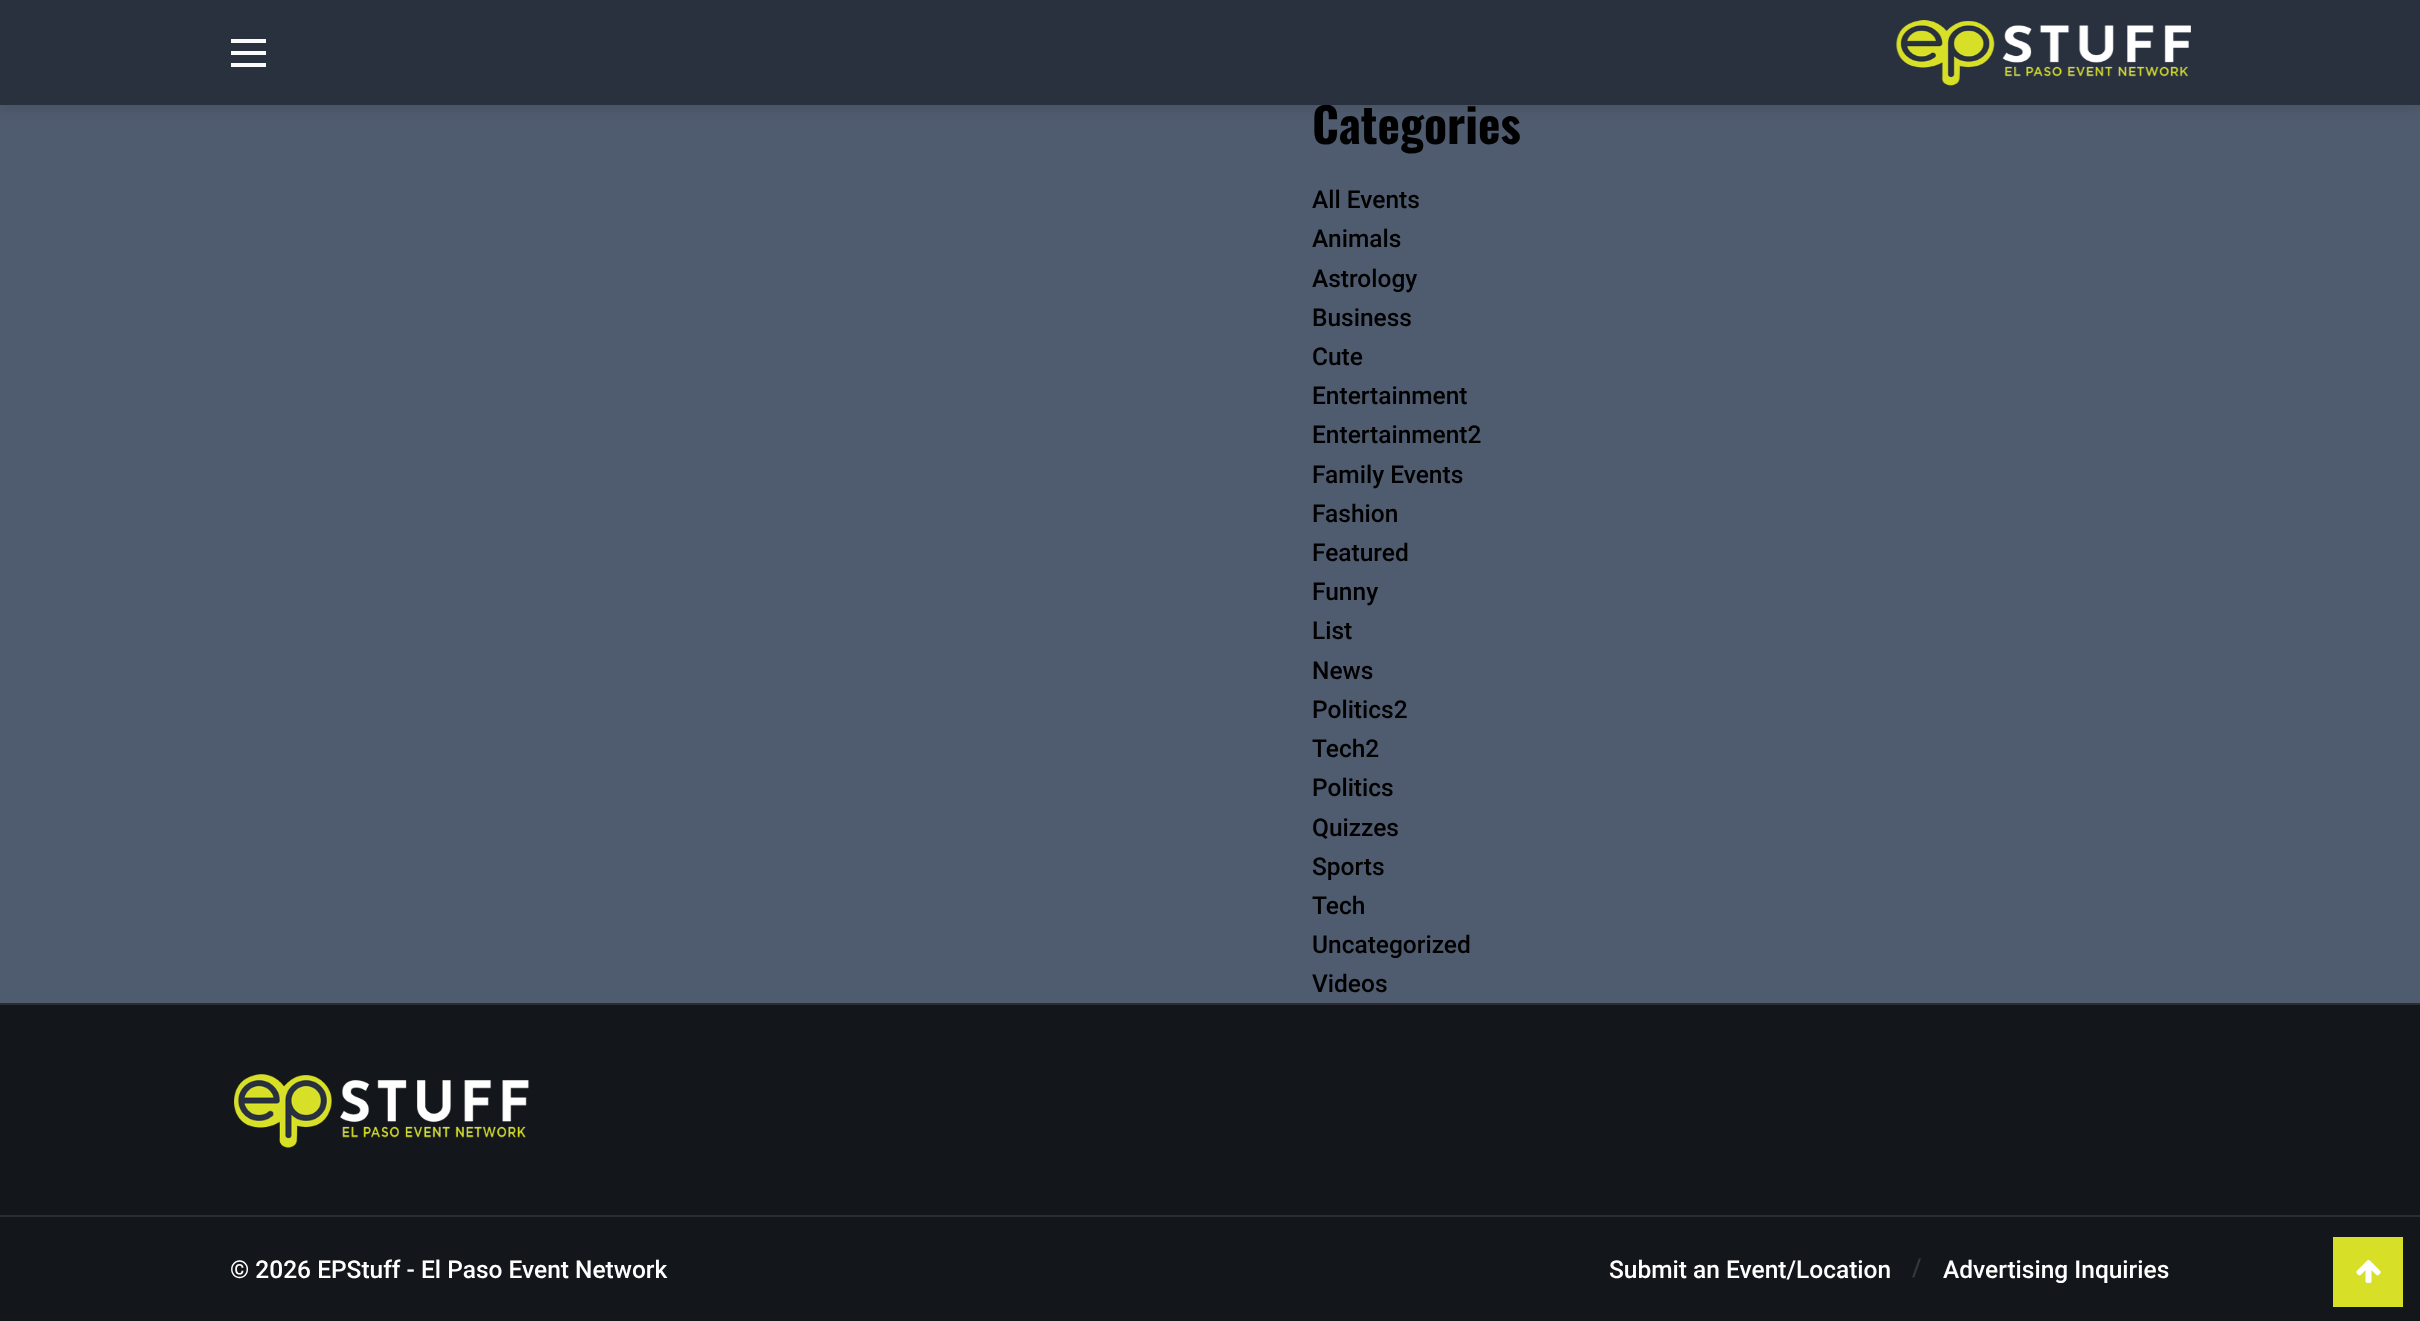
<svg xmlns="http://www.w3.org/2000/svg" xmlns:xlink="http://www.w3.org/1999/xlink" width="2420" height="1321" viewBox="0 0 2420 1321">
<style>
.cls-1{font:bold 47.75px Oswald;fill:#000000}
.cls-2{font:500 24.5px Roboto;fill:#000000}
.cls-3{font:500 24.5px Roboto;fill:#ffffff}
.cls-4{font:500 24.5px Roboto;fill:#36393c}
</style>
<rect width="100%" height="100%" fill="#4f5b6e"/>
<rect fill="#000000" fill-opacity="0.1" filter="blur(7px)" x="0" y="2" width="2420" height="105"/>
<rect fill="#13161a" x="0" y="1005" width="2420" height="210"/>
<rect fill="#2b2d31" x="0" y="1003" width="2420" height="2"/>
<image xlink:href="image1.png" x="234" y="1074" width="295" height="74"/>
<rect fill="#13161a" x="0" y="1217" width="2420" height="104"/>
<rect fill="#2b2d31" x="0" y="1215" width="2420" height="2"/>
<rect fill="#d7e027" x="2333" y="1237" width="70" height="70"/>
<image xlink:href="image2.png" x="2356" y="1260" width="25" height="23"/>
<text class="cls-1" x="1312" y="144">Categories</text>
<rect fill="#29313e" x="0" y="0" width="2420" height="105"/>
<rect fill="#fafafa" x="231" y="63" width="35" height="4"/>
<rect fill="#fafafa" x="231" y="51" width="35" height="4"/>
<rect fill="#fafafa" x="231" y="39" width="35" height="4"/>
<image xlink:href="image0.png" x="1896" y="20" width="295" height="66"/>
<text class="cls-2"><tspan x="1312" y="208">All Events</tspan><tspan x="1312" y="247">Animals</tspan><tspan x="1312" y="287">Astrology</tspan><tspan x="1312" y="326">Business</tspan><tspan x="1312" y="365">Cute</tspan><tspan x="1312" y="404">Entertainment</tspan><tspan x="1312" y="443">Entertainment2</tspan><tspan x="1312" y="483">Family Events</tspan><tspan x="1312" y="522">Fashion</tspan><tspan x="1312" y="561">Featured</tspan><tspan x="1312" y="600">Funny</tspan><tspan x="1312" y="639">List</tspan><tspan x="1312" y="679">News</tspan><tspan x="1312" y="718">Politics2</tspan><tspan x="1312" y="757">Tech2</tspan><tspan x="1312" y="796">Politics</tspan><tspan x="1312" y="836">Quizzes</tspan><tspan x="1312" y="875">Sports</tspan><tspan x="1312" y="914">Tech</tspan><tspan x="1312" y="953">Uncategorized</tspan><tspan x="1312" y="992">Videos</tspan></text>
<text class="cls-3" x="230" y="1278">© 2026 EPStuff - El Paso Event Network</text>
<text class="cls-3" x="1609" y="1278">Submit an Event/Location</text>
<text class="cls-4" x="1912" y="1276">/</text>
<text class="cls-3" x="1943" y="1278">Advertising Inquiries</text>
</svg>
